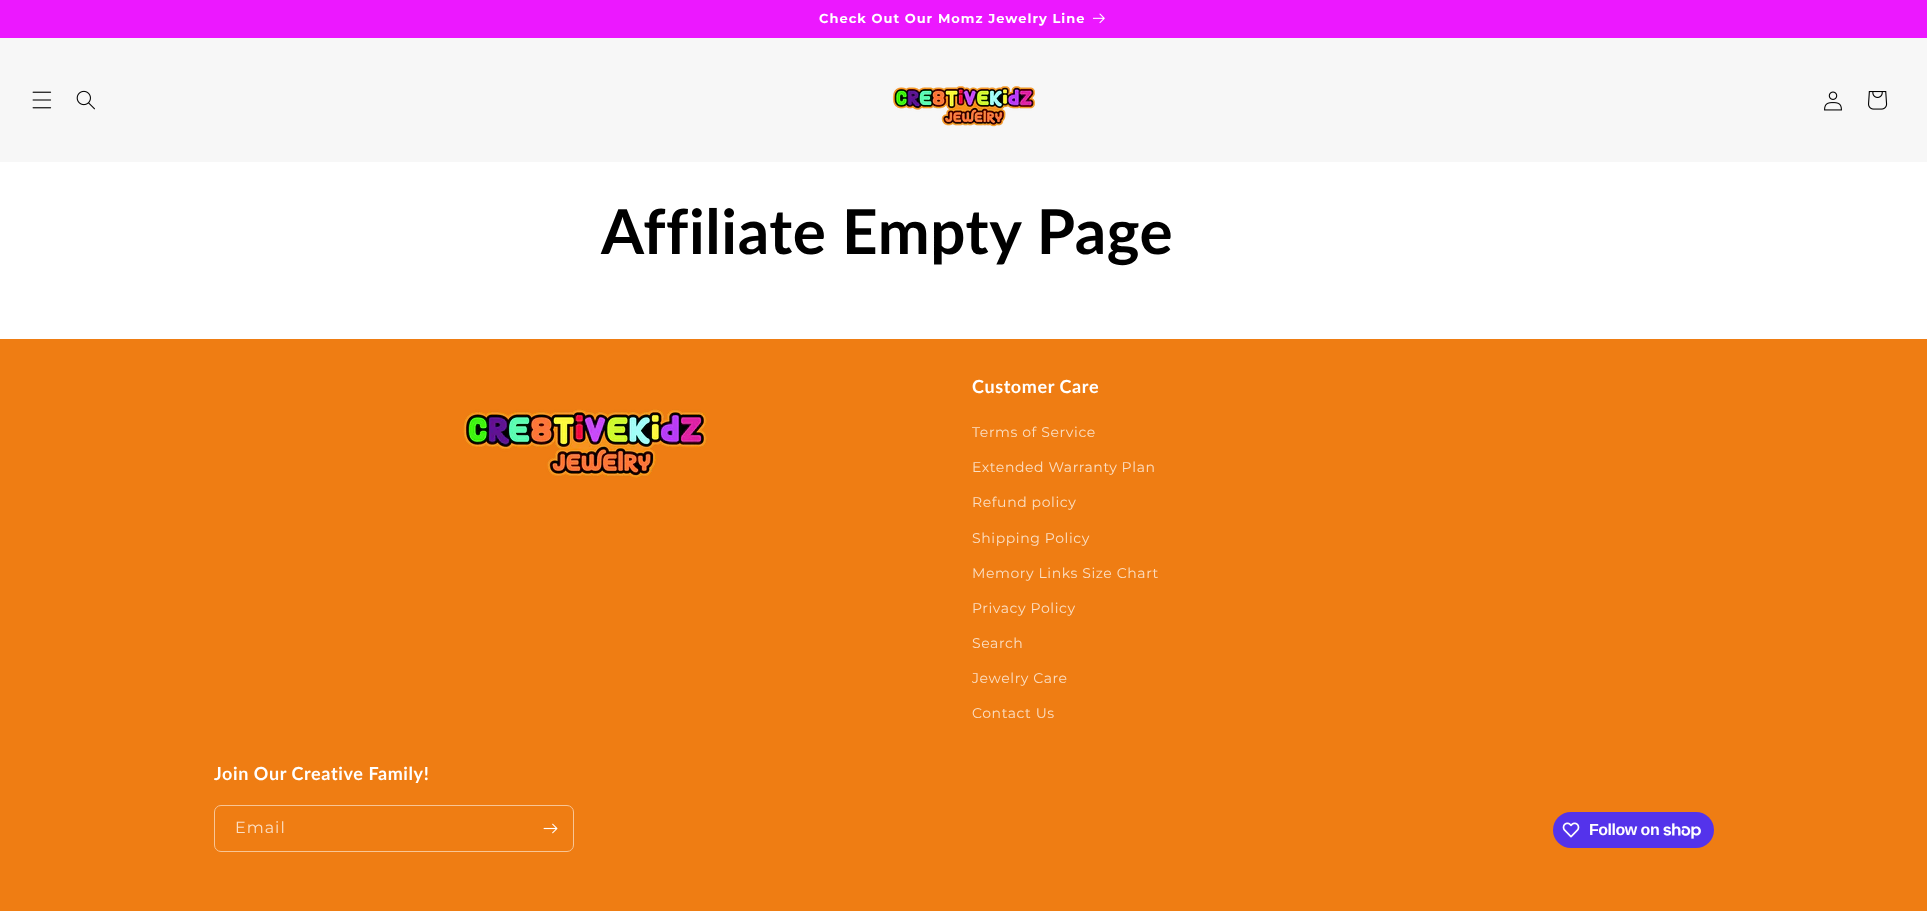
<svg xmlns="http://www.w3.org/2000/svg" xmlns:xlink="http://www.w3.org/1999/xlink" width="1927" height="911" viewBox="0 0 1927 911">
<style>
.cls-1{font:bold 13px Montserrat;letter-spacing:1px;fill:#ffffff}
.cls-2{font:bold 62px Lato;letter-spacing:0.6px;fill:#000000}
.cls-3{font:bold 18px Lato;letter-spacing:0.6px;fill:#ffffff}
.cls-4{font:14px Montserrat;letter-spacing:0.6px;fill:#fbdfc4}
.cls-5{font:16px Montserrat;letter-spacing:1px;fill:#fbdfc4}
.cls-6{font:bold 16px Liberation Sans;letter-spacing:-0.5px;fill:#ffffff}
</style>
<rect width="100%" height="100%" fill="#ffffff"/>
<rect fill="#ec18ff" x="0" y="0" width="1927" height="38"/>
<image xlink:href="image0.png" x="1093" y="13" width="12" height="11"/>
<rect fill="#f7f7f7" x="0" y="38" width="1927" height="124"/>
<image xlink:href="image1.png" x="32" y="91" width="20" height="18"/>
<image xlink:href="image2.png" x="76" y="90" width="19" height="20"/>
<image xlink:href="image3.png" x="892" y="86" width="143" height="41"/>
<image xlink:href="image4.png" x="1824" y="91" width="18" height="20"/>
<image xlink:href="image5.png" x="1868" y="91" width="20" height="19"/>
<rect fill="#ef7d13" x="0" y="339" width="1927" height="572"/>
<image xlink:href="image6.png" x="463" y="409" width="244" height="69"/>
<rect fill="none" stroke="#f8c595" x="214.5" y="805.5" width="359" height="46" rx="6.5"/>
<image xlink:href="image7.png" x="543" y="823" width="15" height="11"/>
<rect fill="#5433eb" x="1553" y="812" width="161" height="36" rx="18"/>
<image xlink:href="image8.png" x="1562" y="822" width="18" height="16"/>
<image xlink:href="image9.png" x="1663" y="823" width="38" height="16"/>
<text class="cls-1" x="819" y="23">Check Out Our Momz Jewelry Line</text>
<text class="cls-2" x="601" y="254">Affiliate Empty Page</text>
<text class="cls-3" x="972" y="393">Customer Care</text>
<text class="cls-4" x="972" y="437">Terms of Service</text>
<text class="cls-4" x="972" y="472">Extended Warranty Plan</text>
<text class="cls-4" x="972" y="507">Refund policy</text>
<text class="cls-4" x="972" y="543">Shipping Policy</text>
<text class="cls-4" x="972" y="578">Memory Links Size Chart</text>
<text class="cls-4" x="972" y="613">Privacy Policy</text>
<text class="cls-4" x="972" y="648">Search</text>
<text class="cls-4" x="972" y="683">Jewelry Care</text>
<text class="cls-4" x="972" y="718">Contact Us</text>
<text class="cls-3" x="214" y="780">Join Our Creative Family!</text>
<text class="cls-5" x="235" y="833">Email</text>
<text class="cls-6" x="1589" y="835">Follow on</text>
</svg>
